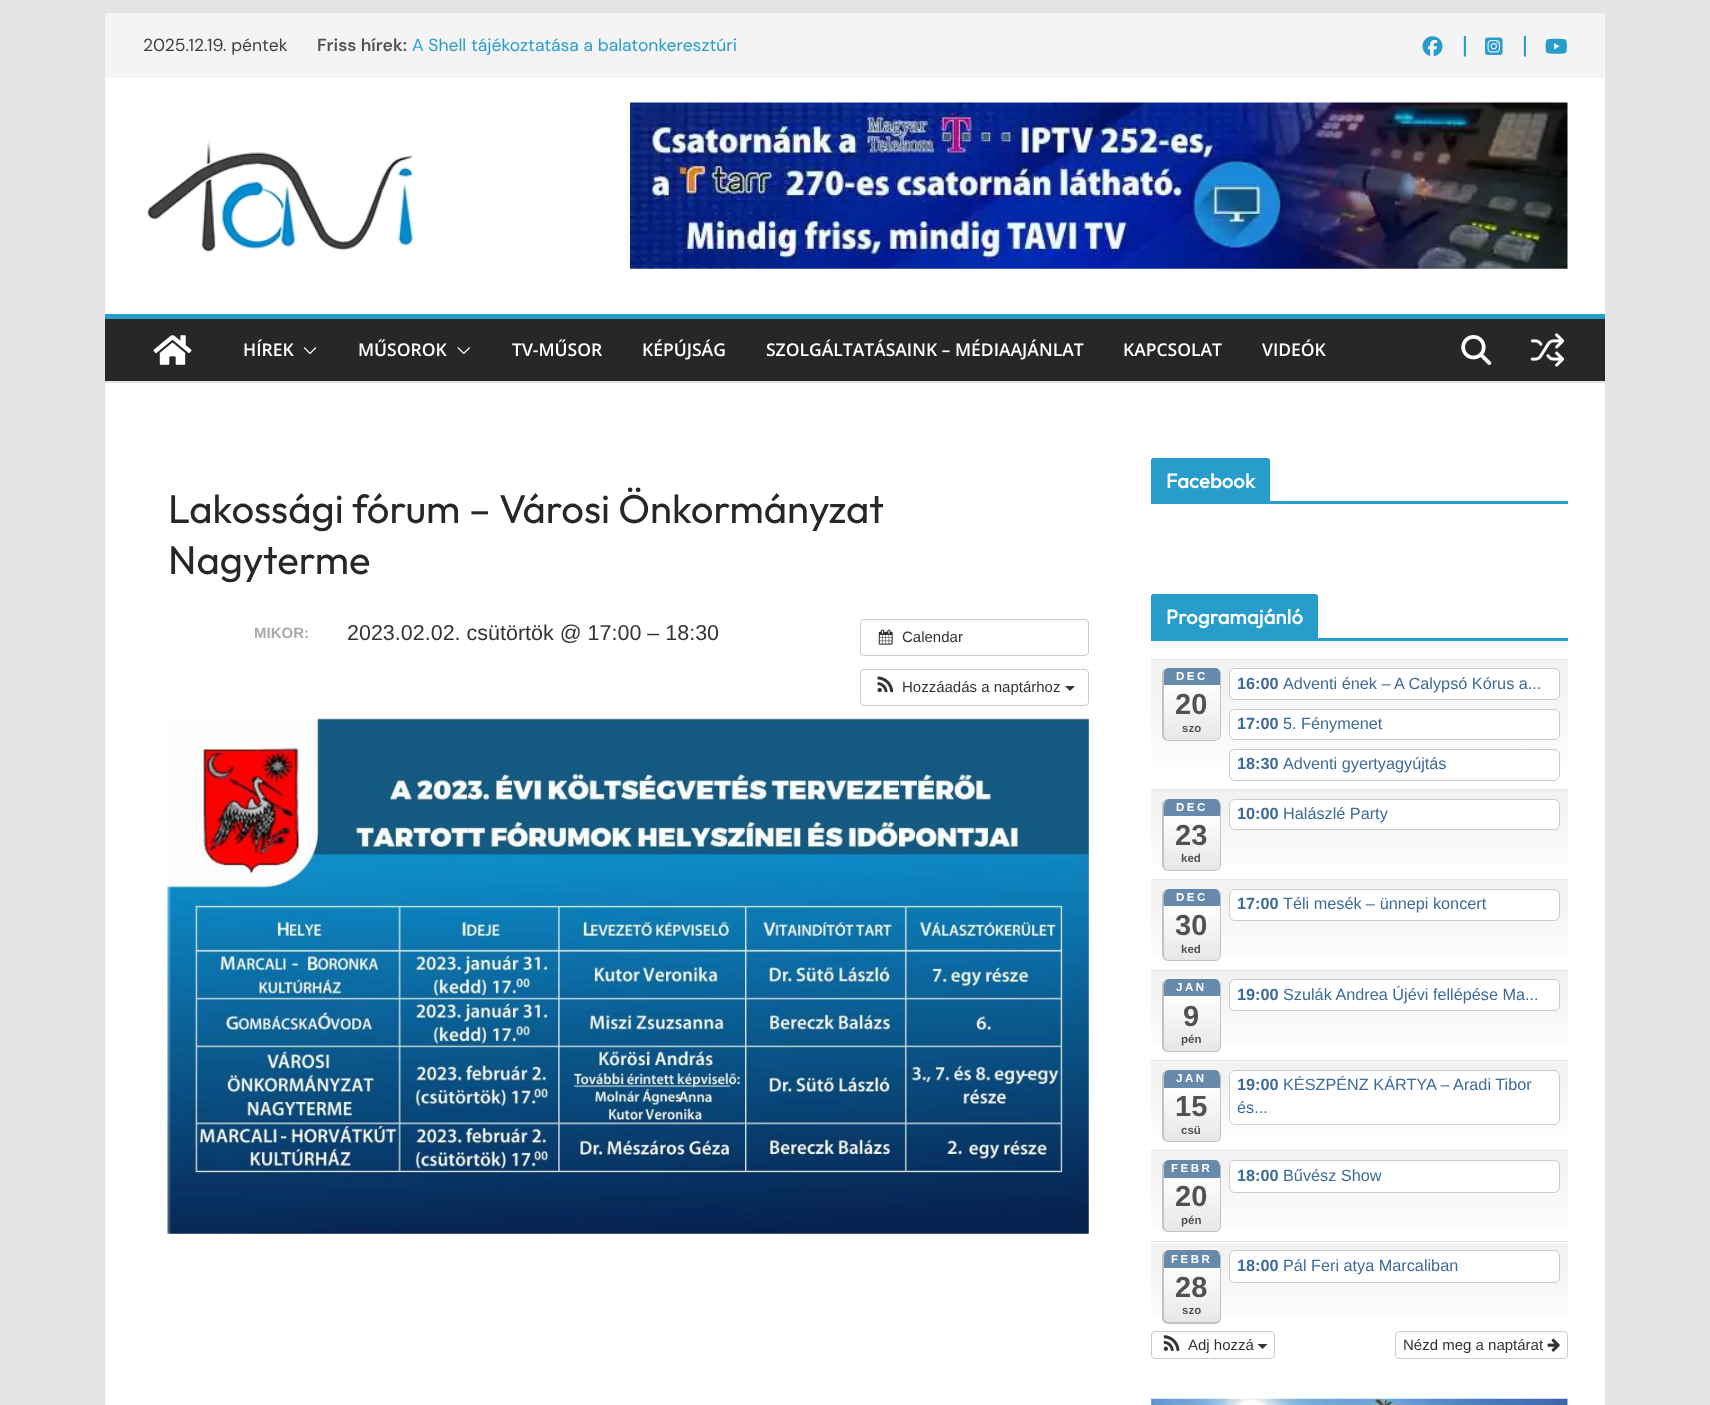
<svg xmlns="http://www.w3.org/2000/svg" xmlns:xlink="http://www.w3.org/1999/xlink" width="1710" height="1405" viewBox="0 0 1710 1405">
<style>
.cls-1{font:17.5px DM Sans;fill:#3f3f46}
.cls-2{font:600 17.5px DM Sans;fill:#525252}
.cls-3{font:17.5px DM Sans;fill:#289dcc}
.cls-4{font:25px DM Sans;fill:#289dcc}
.cls-5{font:600 17.5px Open Sans;fill:#ffffff}
.cls-6{font:100 40px Outfit;fill:#27272a}
.cls-7{font:bold 15px Liberation Sans;fill:#aaaaaa}
.cls-8{font:21.5px Liberation Sans;fill:#333333}
.cls-9{font:15px Liberation Sans;fill:#333333}
.cls-10{font:bold 20px Outfit;letter-spacing:0.25px;fill:#ffffff}
.cls-11{font:bold 11.5px Liberation Sans;letter-spacing:2.5px;fill:#ffffff}
.cls-12{font:bold 29px Liberation Sans;fill:#525252}
.cls-13{font:bold 11.5px Liberation Sans;fill:#525252}
.cls-14{font:bold 16.25px Liberation Sans;fill:#3d6b99}
.cls-15{font:16.25px Liberation Sans;fill:#3d6b99}
</style>
<defs>
<linearGradient id="g1" gradientUnits="userSpaceOnUse" x1="1359" y1="660" x2="1359" y2="789"><stop offset="0" stop-color="#f2f2f2"/><stop offset="0.13" stop-color="#f2f2f2"/><stop offset="1" stop-color="#ffffff"/></linearGradient>
<clipPath id="clip1"><rect x="1163" y="668" width="58" height="73" rx="6"/></clipPath>
<linearGradient id="g2" gradientUnits="userSpaceOnUse" x1="1192" y1="668" x2="1192" y2="740"><stop offset="0" stop-color="#ffffff"/><stop offset="0.2" stop-color="#ffffff"/><stop offset="1" stop-color="#e7e7e7"/></linearGradient>
<linearGradient id="g3" gradientUnits="userSpaceOnUse" x1="1359" y1="790" x2="1359" y2="879"><stop offset="0" stop-color="#f2f2f2"/><stop offset="0.18" stop-color="#f2f2f2"/><stop offset="1" stop-color="#ffffff"/></linearGradient>
<clipPath id="clip2"><rect x="1163" y="799" width="58" height="72" rx="6"/></clipPath>
<linearGradient id="g4" gradientUnits="userSpaceOnUse" x1="1192" y1="799" x2="1192" y2="870"><stop offset="0" stop-color="#ffffff"/><stop offset="0.21" stop-color="#ffffff"/><stop offset="1" stop-color="#e7e7e7"/></linearGradient>
<linearGradient id="g5" gradientUnits="userSpaceOnUse" x1="1359" y1="880" x2="1359" y2="970"><stop offset="0" stop-color="#f2f2f2"/><stop offset="0.18" stop-color="#f2f2f2"/><stop offset="1" stop-color="#ffffff"/></linearGradient>
<clipPath id="clip3"><rect x="1163" y="889" width="58" height="72" rx="6"/></clipPath>
<linearGradient id="g6" gradientUnits="userSpaceOnUse" x1="1192" y1="889" x2="1192" y2="960"><stop offset="0" stop-color="#ffffff"/><stop offset="0.21" stop-color="#ffffff"/><stop offset="1" stop-color="#e7e7e7"/></linearGradient>
<linearGradient id="g7" gradientUnits="userSpaceOnUse" x1="1359" y1="971" x2="1359" y2="1060"><stop offset="0" stop-color="#f2f2f2"/><stop offset="0.18" stop-color="#f2f2f2"/><stop offset="1" stop-color="#ffffff"/></linearGradient>
<clipPath id="clip4"><rect x="1163" y="979" width="58" height="74" rx="6"/></clipPath>
<linearGradient id="g8" gradientUnits="userSpaceOnUse" x1="1192" y1="979" x2="1192" y2="1051"><stop offset="0" stop-color="#ffffff"/><stop offset="0.2" stop-color="#ffffff"/><stop offset="1" stop-color="#e7e7e7"/></linearGradient>
<linearGradient id="g9" gradientUnits="userSpaceOnUse" x1="1359" y1="1061" x2="1359" y2="1150"><stop offset="0" stop-color="#f2f2f2"/><stop offset="0.18" stop-color="#f2f2f2"/><stop offset="1" stop-color="#ffffff"/></linearGradient>
<clipPath id="clip5"><rect x="1163" y="1070" width="58" height="73" rx="6"/></clipPath>
<linearGradient id="g10" gradientUnits="userSpaceOnUse" x1="1192" y1="1070" x2="1192" y2="1141"><stop offset="0" stop-color="#ffffff"/><stop offset="0.21" stop-color="#ffffff"/><stop offset="1" stop-color="#e7e7e7"/></linearGradient>
<linearGradient id="g11" gradientUnits="userSpaceOnUse" x1="1359" y1="1151" x2="1359" y2="1241"><stop offset="0" stop-color="#f2f2f2"/><stop offset="0.18" stop-color="#f2f2f2"/><stop offset="1" stop-color="#ffffff"/></linearGradient>
<clipPath id="clip6"><rect x="1163" y="1160" width="58" height="73" rx="6"/></clipPath>
<linearGradient id="g12" gradientUnits="userSpaceOnUse" x1="1192" y1="1160" x2="1192" y2="1231"><stop offset="0" stop-color="#ffffff"/><stop offset="0.21" stop-color="#ffffff"/><stop offset="1" stop-color="#e7e7e7"/></linearGradient>
<linearGradient id="g13" gradientUnits="userSpaceOnUse" x1="1359" y1="1243" x2="1359" y2="1331"><stop offset="0" stop-color="#f2f2f2"/><stop offset="0.18" stop-color="#f2f2f2"/><stop offset="1" stop-color="#ffffff"/></linearGradient>
<clipPath id="clip7"><rect x="1163" y="1250" width="58" height="74" rx="6"/></clipPath>
<linearGradient id="g14" gradientUnits="userSpaceOnUse" x1="1192" y1="1250" x2="1192" y2="1323"><stop offset="0" stop-color="#ffffff"/><stop offset="0.2" stop-color="#ffffff"/><stop offset="1" stop-color="#e7e7e7"/></linearGradient>
</defs>
<rect width="100%" height="100%" fill="#e4e4e7"/>
<rect fill="#ffffff" x="105" y="78" width="1500" height="236"/>
<rect fill="#f4f4f5" x="105" y="13" width="1500" height="65"/>
<image xlink:href="image0.png" x="1422" y="36" width="21" height="21"/>
<image xlink:href="image1.png" x="1485" y="37" width="18" height="18"/>
<image xlink:href="image2.png" x="1545" y="38" width="22" height="16"/>
<image xlink:href="image3.png" x="147" y="140" width="267" height="112"/>
<image xlink:href="image4.png" x="630" y="102" width="938" height="167"/>
<rect fill="#27272a" x="105" y="319" width="1500" height="62"/>
<rect fill="#289dcc" x="105" y="314" width="1500" height="5"/>
<image xlink:href="image5.png" x="153" y="335" width="39" height="30"/>
<image xlink:href="image6.png" x="303" y="347" width="14" height="7"/>
<image xlink:href="image7.png" x="457" y="347" width="13" height="7"/>
<image xlink:href="image8.png" x="1461" y="335" width="31" height="30"/>
<image xlink:href="image9.png" x="1530" y="333" width="35" height="34"/>
<rect fill="#ffffff" x="105" y="383" width="1500" height="1022"/>
<rect fill="none" stroke="#cccccc" x="860.5" y="619.5" width="228" height="36" rx="3.5"/>
<image xlink:href="image10.png" x="878" y="629" width="15" height="16"/>
<rect fill="none" stroke="#cccccc" x="860.5" y="669.5" width="228" height="36" rx="3.5"/>
<image xlink:href="image11.png" x="877" y="676" width="17" height="17"/>
<path fill="#333333" d="M1065 686H1075L1070 691Z"/>
<image xlink:href="image12.png" x="167" y="718" width="922" height="516"/>
<rect fill="#289dcc" x="1151" y="501" width="417" height="3"/>
<path fill="#289dcc" d="M1153.5 458H1267.5C1269 458 1270 459 1270 460.5V501H1151V460.5C1151 459 1152 458 1153.5 458Z"/>
<rect fill="#289dcc" x="1151" y="638" width="417" height="3"/>
<path fill="#289dcc" d="M1153.5 594H1315.5C1317 594 1318 595 1318 596.5V638H1151V596.5C1151 595 1152 594 1153.5 594Z"/>
<rect fill="url(#g1)" x="1151" y="660" width="417" height="107"/>
<rect fill="#e5e5e5" x="1151" y="659" width="417" height="1"/>
<g clip-path="url(#clip1)">
<rect fill="url(#g2)" x="1164" y="668" width="56" height="72"/>
</g>
<path fill="#c2c2c2" fill-rule="evenodd" d="M1169 668H1215C1218 668 1221 670 1221 674V735C1221 738 1218 741 1215 741H1169C1165 741 1162 738 1162 735V674C1162 670 1165 668 1169 668ZM1169 668H1215C1218 668 1220 670 1220 674V735C1220 738 1218 740 1215 740H1169C1166 740 1164 738 1164 735V674C1164 670 1166 668 1169 668Z"/>
<path fill="#6689ac" d="M1169 668H1215C1218 668 1220 670 1220 673V685H1164V673C1164 670 1166 668 1169 668Z"/>
<rect fill="#ffffff" stroke="#cccccc" x="1229.5" y="668.5" width="330" height="31" rx="5.5"/>
<rect fill="#ffffff" stroke="#cccccc" x="1229.5" y="709.5" width="330" height="30" rx="5.5"/>
<rect fill="#ffffff" stroke="#cccccc" x="1229.5" y="749.5" width="330" height="31" rx="5.5"/>
<rect fill="url(#g3)" x="1151" y="790" width="417" height="75"/>
<rect fill="#e5e5e5" x="1151" y="789" width="417" height="1"/>
<g clip-path="url(#clip2)">
<rect fill="url(#g4)" x="1164" y="799" width="56" height="71"/>
</g>
<path fill="#c2c2c2" fill-rule="evenodd" d="M1169 799H1215C1218 799 1221 802 1221 805V865C1221 868 1218 871 1215 871H1169C1165 871 1162 868 1162 865V805C1162 802 1165 799 1169 799ZM1169 799H1215C1218 799 1220 802 1220 805V865C1220 868 1218 870 1215 870H1169C1166 870 1164 868 1164 865V805C1164 802 1166 799 1169 799Z"/>
<path fill="#6689ac" d="M1169 799C1162 799 1164 812 1164 816H1220C1220 812 1222 799 1215 799Z"/>
<rect fill="#ffffff" stroke="#cccccc" x="1229.5" y="799.5" width="330" height="30" rx="5.5"/>
<rect fill="url(#g5)" x="1151" y="880" width="417" height="76"/>
<rect fill="#e5e5e5" x="1151" y="879" width="417" height="1"/>
<g clip-path="url(#clip3)">
<rect fill="url(#g6)" x="1164" y="889" width="56" height="71"/>
</g>
<path fill="#c2c2c2" fill-rule="evenodd" d="M1169 889H1215C1218 889 1221 892 1221 895V955C1221 958 1218 961 1215 961H1169C1165 961 1162 958 1162 955V895C1162 892 1165 889 1169 889ZM1169 889H1215C1218 889 1220 892 1220 895V955C1220 958 1218 960 1215 960H1169C1166 960 1164 958 1164 955V895C1164 892 1166 889 1169 889Z"/>
<path fill="#6689ac" d="M1169 889C1162 889 1164 902 1164 906H1220C1220 902 1222 889 1215 889Z"/>
<rect fill="#ffffff" stroke="#cccccc" x="1229.5" y="889.5" width="330" height="31" rx="5.5"/>
<rect fill="url(#g7)" x="1151" y="971" width="417" height="75"/>
<rect fill="#e5e5e5" x="1151" y="970" width="417" height="1"/>
<g clip-path="url(#clip4)">
<rect fill="url(#g8)" x="1164" y="979" width="56" height="72"/>
</g>
<path fill="#c2c2c2" fill-rule="evenodd" d="M1169 979H1215C1218 979 1221 982 1221 985V1046C1221 1050 1218 1052 1215 1052H1169C1165 1052 1162 1050 1162 1046V985C1162 982 1165 979 1169 979ZM1169 979H1215C1218 979 1220 982 1220 985V1046C1220 1049 1218 1051 1215 1051H1169C1166 1051 1164 1049 1164 1046V985C1164 982 1166 979 1169 979Z"/>
<path fill="#6689ac" d="M1169 979C1162 979 1164 992 1164 996H1220C1220 992 1222 979 1215 979Z"/>
<rect fill="#ffffff" stroke="#cccccc" x="1229.5" y="979.5" width="330" height="31" rx="5.5"/>
<rect fill="url(#g9)" x="1151" y="1061" width="417" height="75"/>
<rect fill="#e5e5e5" x="1151" y="1060" width="417" height="1"/>
<g clip-path="url(#clip5)">
<rect fill="url(#g10)" x="1164" y="1070" width="56" height="71"/>
</g>
<path fill="#c2c2c2" fill-rule="evenodd" d="M1169 1070H1215C1218 1070 1221 1073 1221 1076V1136C1221 1140 1218 1142 1215 1142H1169C1165 1142 1162 1140 1162 1136V1076C1162 1073 1165 1070 1169 1070ZM1169 1070H1215C1218 1070 1220 1073 1220 1076V1136C1220 1139 1218 1141 1215 1141H1169C1166 1141 1164 1139 1164 1136V1076C1164 1073 1166 1070 1169 1070Z"/>
<path fill="#6689ac" d="M1169 1070C1164 1070 1164 1076 1164 1079V1088H1220C1220 1084 1222 1070 1215 1070Z"/>
<rect fill="#ffffff" stroke="#cccccc" x="1229.5" y="1070.5" width="330" height="54" rx="5.5"/>
<rect fill="url(#g11)" x="1151" y="1151" width="417" height="76"/>
<rect fill="#e5e5e5" x="1151" y="1150" width="417" height="1"/>
<g clip-path="url(#clip6)">
<rect fill="url(#g12)" x="1164" y="1160" width="56" height="71"/>
</g>
<path fill="#c2c2c2" fill-rule="evenodd" d="M1169 1160H1215C1218 1160 1221 1163 1221 1166V1226C1221 1230 1218 1232 1215 1232H1169C1165 1232 1162 1230 1162 1226V1166C1162 1163 1165 1160 1169 1160ZM1169 1160H1215C1218 1160 1220 1163 1220 1166V1226C1220 1229 1218 1231 1215 1231H1169C1166 1231 1164 1229 1164 1226V1166C1164 1163 1166 1160 1169 1160Z"/>
<path fill="#6689ac" d="M1169 1160C1164 1160 1164 1166 1164 1169V1178H1220C1220 1174 1222 1160 1215 1160Z"/>
<rect fill="#ffffff" stroke="#cccccc" x="1229.5" y="1160.5" width="330" height="32" rx="5.5"/>
<rect fill="url(#g13)" x="1151" y="1243" width="417" height="74"/>
<rect fill="#e5e5e5" x="1151" y="1241" width="417" height="1"/>
<g clip-path="url(#clip7)">
<rect fill="url(#g14)" x="1164" y="1250" width="56" height="73"/>
</g>
<path fill="#c2c2c2" fill-rule="evenodd" d="M1169 1250H1215C1218 1250 1221 1253 1221 1256V1318C1221 1321 1218 1324 1215 1324H1169C1165 1324 1162 1321 1162 1318V1256C1162 1253 1165 1250 1169 1250ZM1169 1250H1215C1218 1250 1220 1253 1220 1256V1318C1220 1320 1218 1322 1215 1322H1169C1166 1322 1164 1320 1164 1318V1256C1164 1253 1166 1250 1169 1250Z"/>
<path fill="#6689ac" d="M1169 1250C1164 1250 1164 1256 1164 1259V1268H1220C1220 1264 1222 1250 1215 1250Z"/>
<rect fill="#ffffff" stroke="#cccccc" x="1229.5" y="1250.5" width="330" height="32" rx="5.5"/>
<rect fill="none" stroke="#cccccc" x="1151.5" y="1331.5" width="123" height="27" rx="3.5"/>
<image xlink:href="image13.png" x="1163" y="1335" width="17" height="16"/>
<path fill="#333333" d="M1257.5 1344H1267.5L1262.5 1349Z"/>
<rect fill="none" stroke="#cccccc" x="1395.5" y="1331.5" width="172" height="27" rx="3.5"/>
<image xlink:href="image14.png" x="1547" y="1338" width="13" height="14"/>
<image xlink:href="image15.png" x="1151" y="1398" width="417" height="7"/>
<text class="cls-1" x="143" y="51">2025.12.19. péntek</text>
<text class="cls-2" x="317" y="51">Friss hírek:</text>
<text class="cls-3" x="412" y="51">A Shell tájékoztatása a balatonkeresztúri</text>
<text class="cls-4" x="1462" y="54">|</text>
<text class="cls-4" x="1522" y="54">|</text>
<text class="cls-5" x="243" y="356">HÍREK</text>
<text class="cls-5" x="358" y="356">MŰSOROK</text>
<text class="cls-5" x="512" y="356">TV-MŰSOR</text>
<text class="cls-5" x="642" y="356">KÉPÚJSÁG</text>
<text class="cls-5" x="766" y="356">SZOLGÁLTATÁSAINK – MÉDIAAJÁNLAT</text>
<text class="cls-5" x="1123" y="356">KAPCSOLAT</text>
<text class="cls-5" x="1262" y="356">VIDEÓK</text>
<text class="cls-6"><tspan x="168" y="523">Lakossági fórum – Városi Önkormányzat</tspan><tspan x="168" y="574">Nagyterme</tspan></text>
<text class="cls-7" x="254" y="638">MIKOR:</text>
<text class="cls-8" x="347" y="640">2023.02.02. csütörtök @ 17:00 – 18:30</text>
<text class="cls-9" x="902" y="642">Calendar</text>
<text class="cls-9" x="902" y="692">Hozzáadás a naptárhoz</text>
<text class="cls-10" x="1166" y="488">Facebook</text>
<text class="cls-10" x="1166" y="624">Programajánló</text>
<text class="cls-11" x="1176" y="680">DEC</text>
<text class="cls-12" x="1175" y="714">20</text>
<text class="cls-13" x="1182" y="732">szo</text>
<text class="cls-14" x="1237" y="689">16:00</text>
<text class="cls-15" x="1283" y="689">Adventi ének – A Calypsó Kórus a...</text>
<text class="cls-14" x="1237" y="729">17:00</text>
<text class="cls-15" x="1283" y="729">5. Fénymenet</text>
<text class="cls-14" x="1237" y="769">18:30</text>
<text class="cls-15" x="1283" y="769">Adventi gyertyagyújtás</text>
<text class="cls-11" x="1176" y="811">DEC</text>
<text class="cls-12" x="1175" y="845">23</text>
<text class="cls-13" x="1181" y="862">ked</text>
<text class="cls-14" x="1237" y="819">10:00</text>
<text class="cls-15" x="1283" y="819">Halászlé Party</text>
<text class="cls-11" x="1176" y="901">DEC</text>
<text class="cls-12" x="1175" y="935">30</text>
<text class="cls-13" x="1181" y="953">ked</text>
<text class="cls-14" x="1237" y="909">17:00</text>
<text class="cls-15" x="1283" y="909">Téli mesék – ünnepi koncert</text>
<text class="cls-11" x="1176" y="991">JAN</text>
<text class="cls-12" x="1183" y="1026">9</text>
<text class="cls-13" x="1181" y="1043">pén</text>
<text class="cls-14" x="1237" y="1000">19:00</text>
<text class="cls-15" x="1283" y="1000">Szulák Andrea Újévi fellépése Ma...</text>
<text class="cls-11" x="1176" y="1082">JAN</text>
<text class="cls-12" x="1175" y="1116">15</text>
<text class="cls-13" x="1181" y="1134">csü</text>
<text class="cls-14" x="1237" y="1090">19:00</text>
<text class="cls-15" x="1283" y="1090">KÉSZPÉNZ KÁRTYA – Aradi Tibor</text>
<text class="cls-15" x="1237" y="1113">és...</text>
<text class="cls-11" x="1171" y="1172">FEBR</text>
<text class="cls-12" x="1175" y="1206">20</text>
<text class="cls-13" x="1181" y="1224">pén</text>
<text class="cls-14" x="1237" y="1181">18:00</text>
<text class="cls-15" x="1283" y="1181">Bűvész Show</text>
<text class="cls-11" x="1171" y="1263">FEBR</text>
<text class="cls-12" x="1175" y="1297">28</text>
<text class="cls-13" x="1182" y="1314">szo</text>
<text class="cls-14" x="1237" y="1271">18:00</text>
<text class="cls-15" x="1283" y="1271">Pál Feri atya Marcaliban</text>
<text class="cls-9" x="1188" y="1350">Adj hozzá</text>
<text class="cls-9" x="1403" y="1350">Nézd meg a naptárat</text>
</svg>
